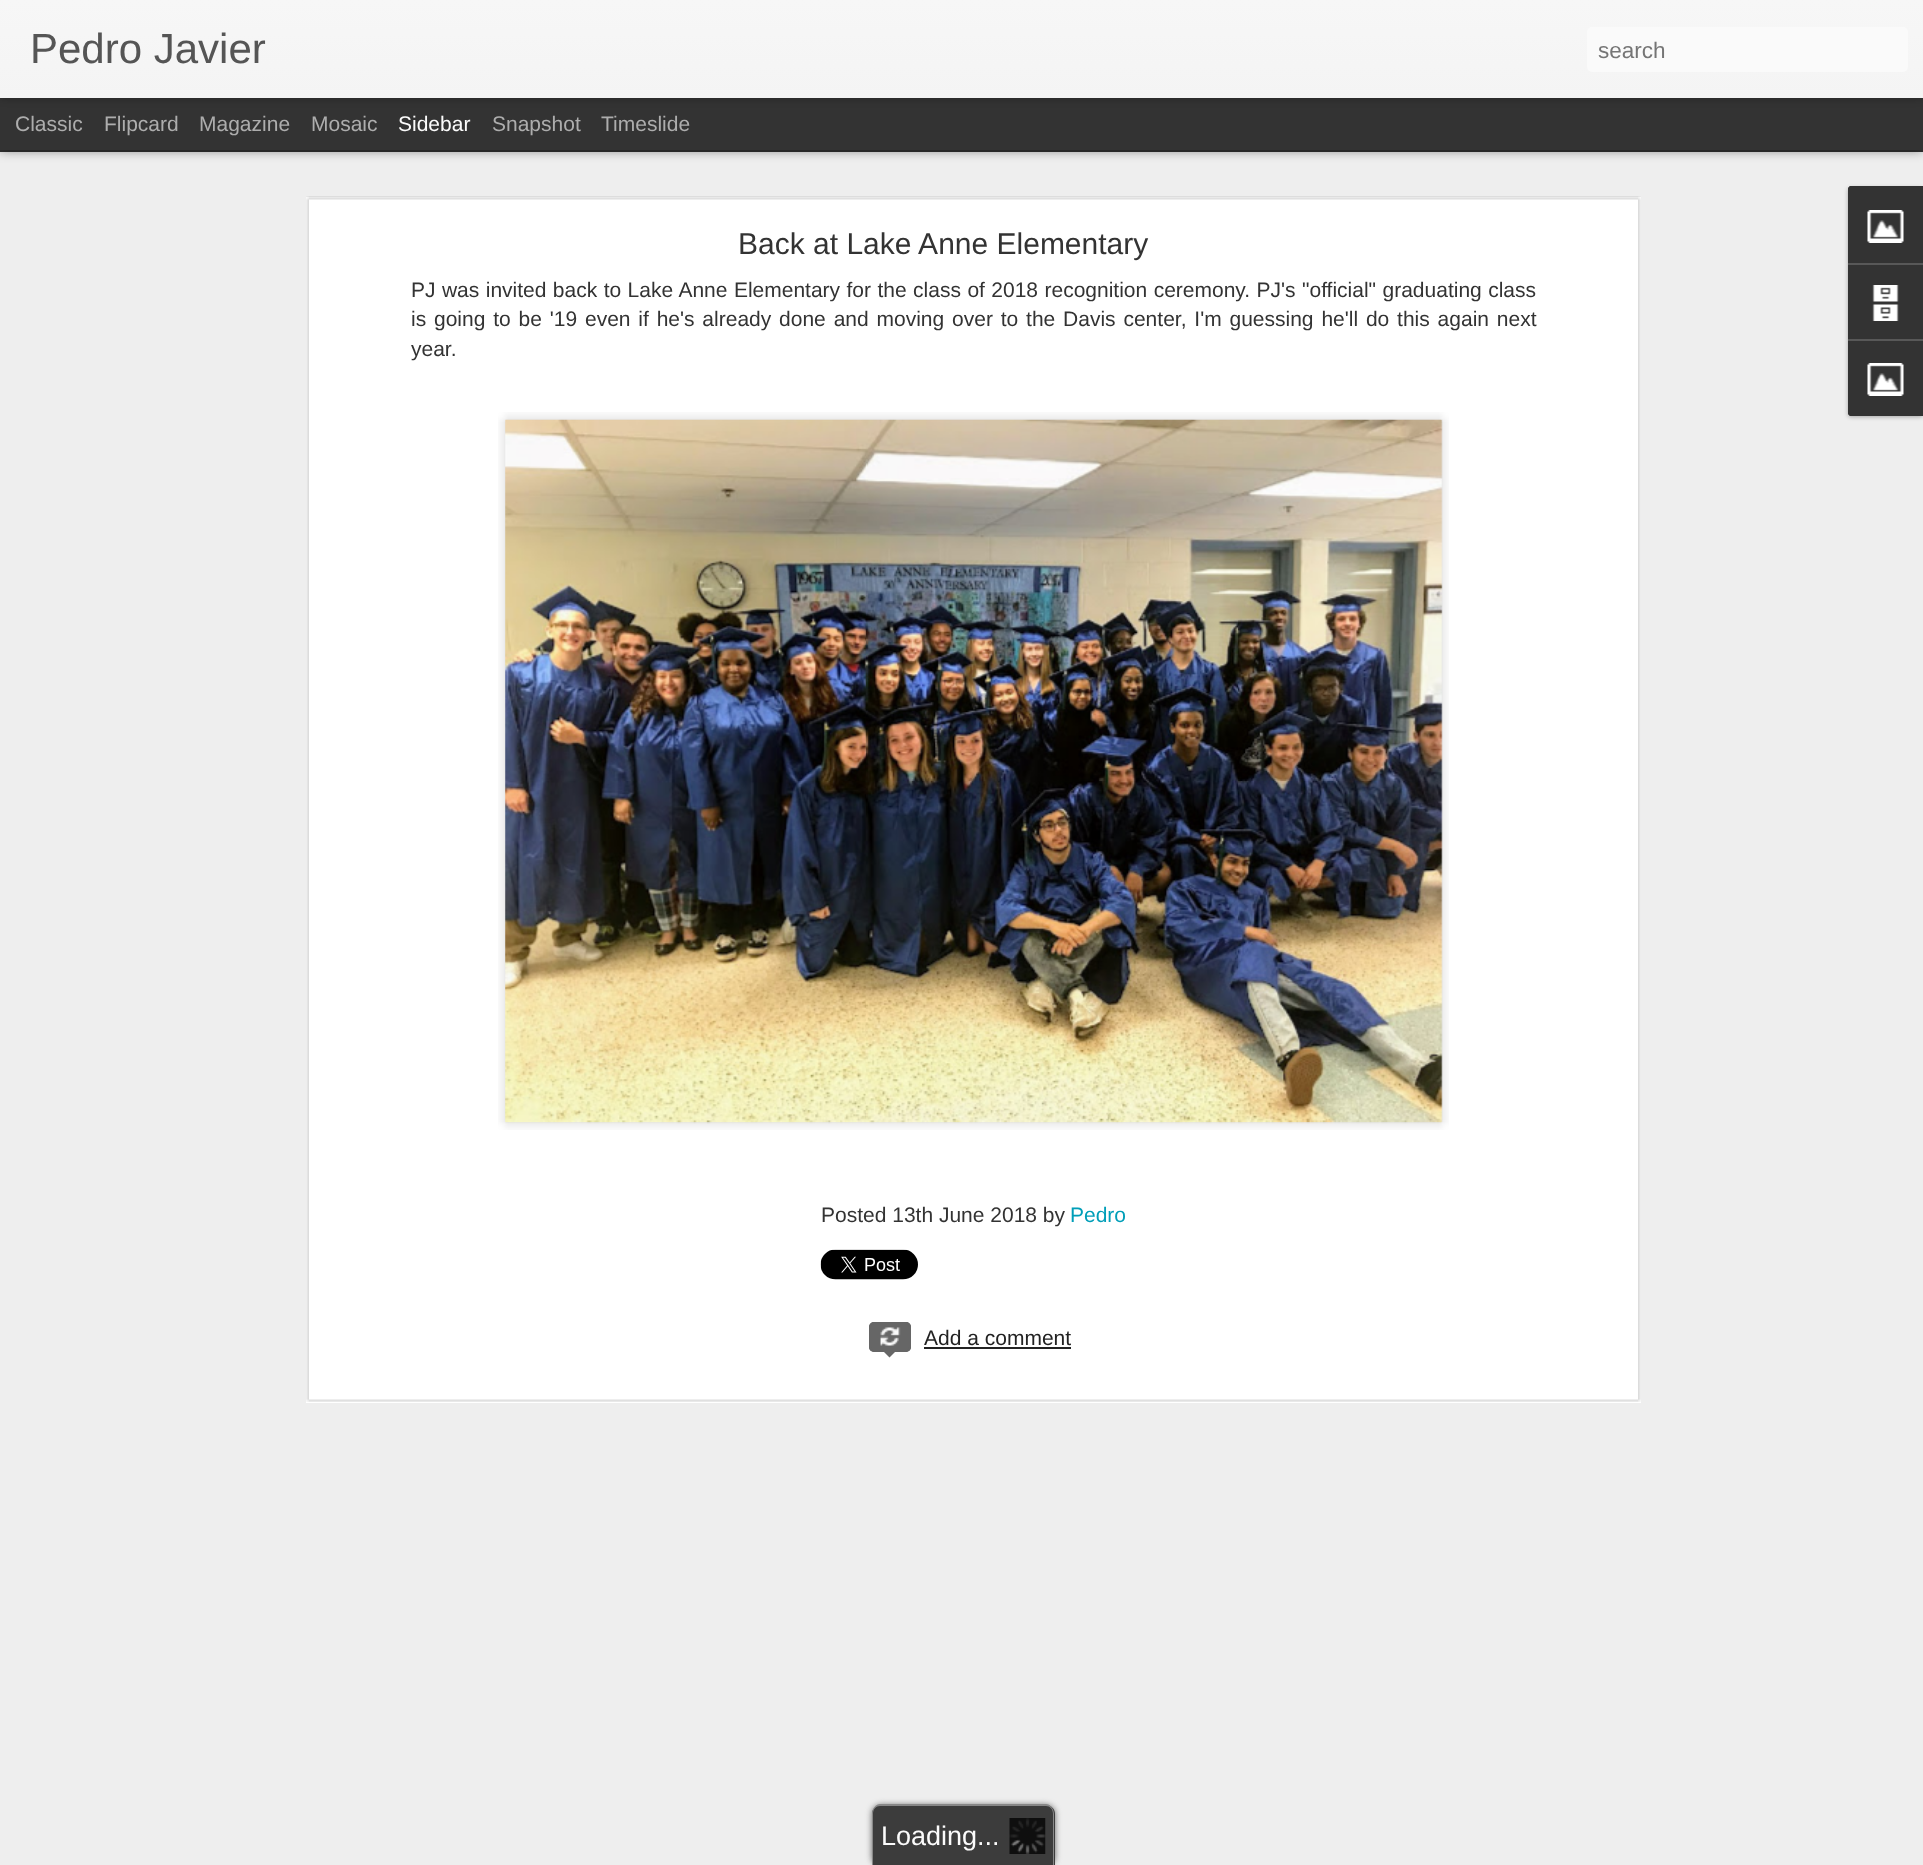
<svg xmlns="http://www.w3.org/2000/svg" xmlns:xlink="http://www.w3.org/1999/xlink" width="1923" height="1865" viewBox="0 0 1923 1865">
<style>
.cls-1{font:42px Liberation Sans;fill:#555555}
.cls-2{font:22.5px Liberation Sans;fill:#757575}
.cls-3{font:21px Liberation Sans;fill:#adadad}
.cls-4{font:21px Liberation Sans;fill:#fbfbfb}
.cls-5{font:30px Liberation Sans;fill:#333333}
.cls-6{font:21px Liberation Sans;fill:#333333}
.cls-7{font:21px Liberation Sans;fill:#009eb8}
.cls-8{font:21px Liberation Sans;fill:#222222}
.cls-9{font:27px Liberation Sans;fill:#fbfbfb}
</style>
<defs>
<linearGradient id="g1" gradientUnits="userSpaceOnUse" x1="0" y1="0" x2="0" y2="98"><stop offset="0" stop-color="#f7f7f7"/><stop offset="1" stop-color="#f4f4f4"/></linearGradient>
</defs>
<rect width="100%" height="100%" fill="#333333"/>
<rect fill="#eeeeee" x="0" y="152" width="1923" height="1713"/>
<rect fill="#000000" fill-opacity="0.5" filter="blur(6px)" x="0" y="98" width="1923" height="52"/>
<rect fill="#333333" x="0" y="98" width="1923" height="52"/>
<rect fill="#000000" fill-opacity="0.3" filter="blur(4px)" x="0" y="0" width="1923" height="98"/>
<rect fill="url(#g1)" x="0" y="0" width="1923" height="98"/>
<rect fill="#fafafa" x="1587" y="27" width="321" height="45" rx="5"/>
<rect fill="#ffffff" x="306" y="197" width="1335" height="1206"/>
<image xlink:href="image0.png" x="306" y="196" width="1335" height="1206"/>
<image xlink:href="image1.png" x="498" y="412" width="951" height="718"/>
<image xlink:href="image2.png" x="505" y="419" width="938" height="705"/>
<image xlink:href="image3.png" x="820" y="1249" width="98" height="31"/>
<rect fill="#666666" x="869" y="1322" width="42" height="30" rx="5"/>
<image xlink:href="image4.png" x="880" y="1327" width="21" height="19"/>
<rect fill="none" stroke="#666666" stroke-width="2" x="870" y="1323" width="40" height="28" rx="4"/>
<path fill="#666666" d="M882 1350H897L889.5 1357.5Z"/>
<rect fill="#222222" x="924" y="1347" width="147" height="2"/>
<rect fill="#000000" fill-opacity="0.3" filter="blur(2px)" x="1848" y="188" width="75" height="229" rx="3"/>
<path fill="#333333" d="M1851 186H1923V416H1851C1849.5 416 1848 414.5 1848 413V189C1848 187.5 1849.5 186 1851 186Z"/>
<path fill="#333333" d="M1851 186H1923V263H1848V189C1848 187.5 1849.5 186 1851 186Z"/>
<image xlink:href="image5.png" x="1867" y="210" width="37" height="33"/>
<rect fill="#585858" x="1848" y="263" width="75" height="2"/>
<image xlink:href="image6.png" x="1872" y="285" width="27" height="36"/>
<path fill="#333333" d="M1848 339H1923V416H1851C1849.5 416 1848 414.5 1848 413Z"/>
<rect fill="#585858" x="1848" y="339" width="75" height="2"/>
<image xlink:href="image5.png" x="1867" y="363" width="37" height="33"/>
<rect fill="#626262" filter="blur(3px)" x="872" y="1805" width="183" height="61" rx="9"/>
<path fill="#3c3c3c" d="M881 1805H1046C1051 1805 1055 1809 1055 1814V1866H872V1814C872 1809 876 1805 881 1805Z"/>
<path fill="#888888" fill-rule="evenodd" d="M880 1804H1046C1050 1804 1054 1809 1054 1814V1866H872V1814C872 1809 876 1804 880 1804ZM880 1806H1046C1050 1806 1053 1809 1053 1814V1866H873V1814C873 1809 876 1806 880 1806Z"/>
<image xlink:href="image7.png" x="1009" y="1818" width="37" height="36"/>
<text class="cls-1" x="30" y="63">Pedro Javier</text>
<text class="cls-2" x="1598" y="58">search</text>
<text class="cls-3" x="15" y="131">Classic</text>
<text class="cls-3" x="104" y="131">Flipcard</text>
<text class="cls-3" x="199" y="131">Magazine</text>
<text class="cls-3" x="311" y="131">Mosaic</text>
<text class="cls-4" x="398" y="131">Sidebar</text>
<text class="cls-3" x="492" y="131">Snapshot</text>
<text class="cls-3" x="601" y="131">Timeslide</text>
<text class="cls-5" x="738" y="254">Back at Lake Anne Elementary</text>
<text class="cls-6"><tspan x="411" y="297" word-spacing="0.6">PJ was invited back to Lake Anne Elementary for the class of 2018 recognition ceremony. PJ's "official" graduating class</tspan><tspan x="411" y="326" word-spacing="2">is going to be '19 even if he's already done and moving over to the Davis center, I'm guessing he'll do this again next</tspan><tspan x="411" y="356">year.</tspan></text>
<text class="cls-6" x="821" y="1222">Posted 13th June 2018 by</text>
<text class="cls-7" x="1070" y="1222">Pedro</text>
<text class="cls-8" x="924" y="1345">Add a comment</text>
<text class="cls-9" x="881" y="1845">Loading...</text>
</svg>
